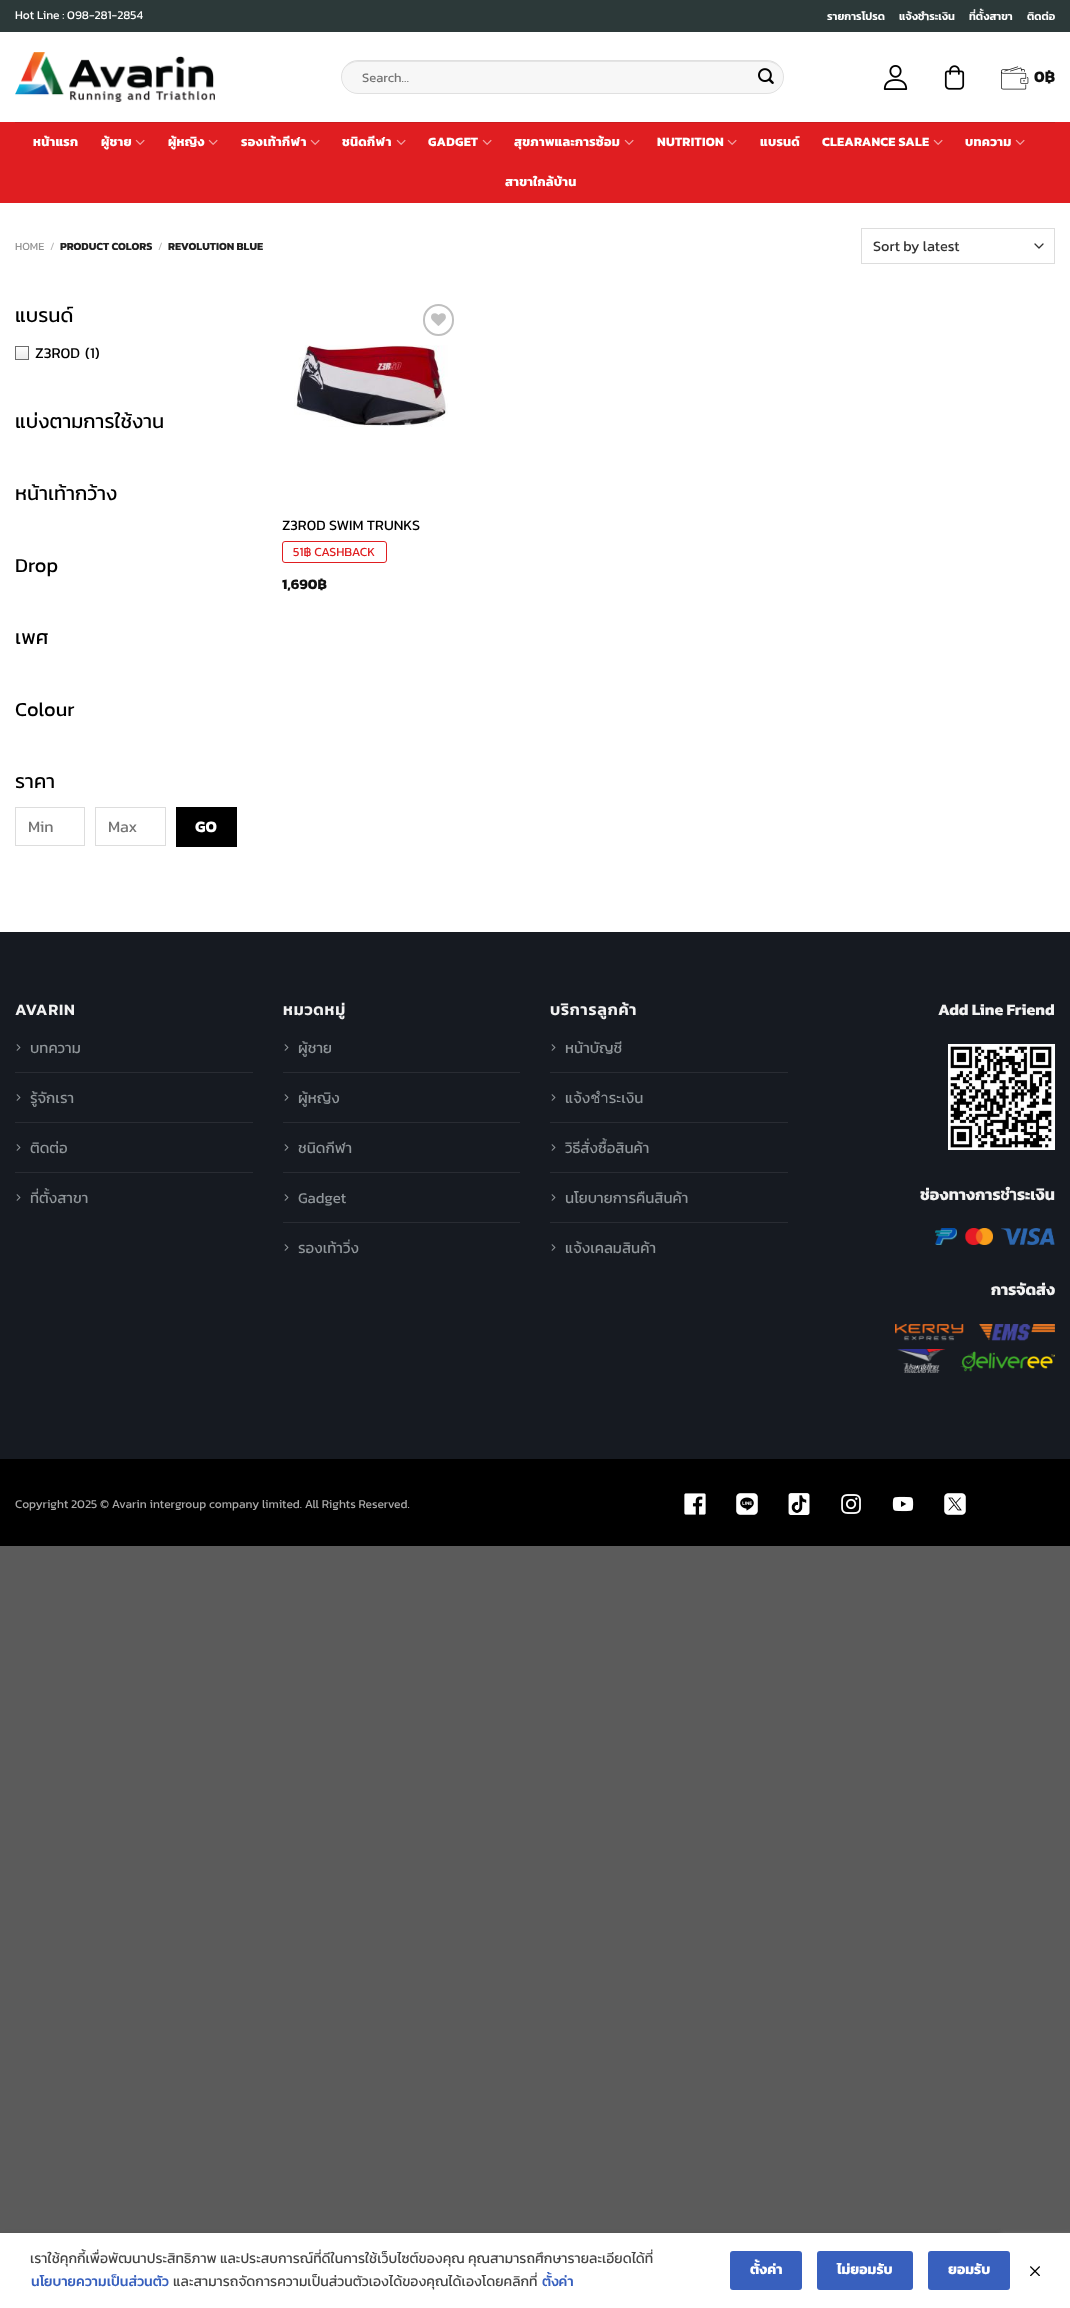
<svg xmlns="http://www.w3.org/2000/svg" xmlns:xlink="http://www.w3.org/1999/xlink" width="1070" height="2308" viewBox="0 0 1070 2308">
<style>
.cls-1{font:12px Kanit;fill:#ffffff}
.cls-2{font:600 11px Kanit;fill:#ffffff}
.cls-3{font:13px Kanit;fill:#757575}
.cls-4{font:bold 16px Kanit;fill:#111111}
.cls-5{font:bold 12.75px Kanit;letter-spacing:0.25px;fill:#ffffff}
.cls-6{font:11px Kanit;fill:#949494}
.cls-7{font:300 11px Kanit;fill:#b2b2b2}
.cls-8{font:bold 11px Kanit;fill:#222222}
.cls-9{font:14.5px Kanit;fill:#333333}
.cls-10{font:20px Kanit;fill:#000000}
.cls-11{font:15px Kanit;fill:#000000}
.cls-12{font:16px Kanit;fill:#757575}
.cls-13{font:bold 16px Kanit;fill:#ffffff}
.cls-14{font:14.5px Kanit;fill:#000000}
.cls-15{font:12.5px Kanit;fill:#e01e21}
.cls-16{font:bold 14.5px Kanit;fill:#111111}
.cls-17{font:600 16px Kanit;letter-spacing:0.75px;fill:#f1f1f1}
.cls-18{font:15px Kanit;fill:#90969a}
.cls-19{font:bold 16px Kanit;fill:#f1f1f1}
.cls-20{font:12px Kanit;fill:#a8a8a8}
.cls-21{font:14px Kanit;fill:#444444}
.cls-22{font:500 14px Kanit;fill:#3860be}
.cls-23{font:bold 14px Kanit;fill:#ffffff}
</style>
<rect width="100%" height="100%" fill="#5b5b5b"/>
<rect fill="#ffffff" x="0" y="32" width="1070" height="900"/>
<rect fill="#2c3939" x="0" y="0" width="1070" height="32"/>
<image xlink:href="image0.png" x="15" y="52" width="200" height="50"/>
<rect fill="#f7f7f7" x="341" y="60" width="443" height="34" rx="17"/>
<path fill="#e4e4e4" d="M358 62H767C776 62 783 69 783 77C783 71 779 65 773 62L767 61H358L352 62C346 65 342 71 342 77C342 69 349 62 358 62Z"/>
<rect fill="none" stroke="#000000" stroke-opacity="0.09" x="341.5" y="60.5" width="442" height="33" rx="16.5"/>
<image xlink:href="image1.png" x="758" y="68" width="16" height="16"/>
<image xlink:href="image2.png" x="883" y="65" width="25" height="25"/>
<image xlink:href="image3.png" x="944" y="65" width="21" height="25"/>
<image xlink:href="image4.png" x="1001" y="66" width="28" height="24"/>
<rect fill="#e01e21" x="0" y="122" width="1070" height="81"/>
<rect fill="#ca1b1e" x="15" y="122" width="1040" height="1"/>
<image xlink:href="image5.png" x="135" y="139" width="10" height="6"/>
<image xlink:href="image5.png" x="208" y="139" width="10" height="6"/>
<image xlink:href="image5.png" x="310" y="139" width="10" height="6"/>
<image xlink:href="image5.png" x="396" y="139" width="10" height="6"/>
<image xlink:href="image5.png" x="482" y="139" width="10" height="6"/>
<image xlink:href="image5.png" x="624" y="139" width="10" height="6"/>
<image xlink:href="image5.png" x="727" y="139" width="10" height="6"/>
<image xlink:href="image5.png" x="933" y="139" width="10" height="6"/>
<image xlink:href="image5.png" x="1015" y="139" width="10" height="6"/>
<path fill="none" stroke="#333333" stroke-width="1.3" stroke-linecap="round" stroke-linejoin="round" d="M1035 244L1039 248L1043 244"/>
<rect fill="none" stroke="#dddddd" x="861.5" y="228.5" width="193" height="35"/>
<image xlink:href="image6.png" x="15" y="346" width="14" height="14"/>
<rect fill="none" stroke="#dddddd" x="15.5" y="807.5" width="69" height="38"/>
<rect fill="none" stroke="#dddddd" x="95.5" y="807.5" width="70" height="38"/>
<rect fill="#000000" x="176" y="807" width="61" height="40"/>
<rect fill="none" stroke="#c0c0c0" stroke-width="2" x="424" y="305" width="29" height="30" rx="14.5"/>
<image xlink:href="image7.png" x="431" y="313" width="15" height="13"/>
<image xlink:href="image8.png" x="294" y="345" width="154" height="82"/>
<rect fill="none" stroke="#e01e21" x="282.5" y="541.5" width="104" height="21" rx="2.5"/>
<rect fill="#161a21" x="0" y="933" width="1070" height="526"/>
<rect fill="#15191f" x="0" y="932" width="1070" height="1"/>
<image xlink:href="image9.png" x="16" y="1044" width="5" height="7"/>
<image xlink:href="image9.png" x="16" y="1094" width="5" height="7"/>
<rect fill="#292c33" x="15" y="1072" width="238" height="1"/>
<image xlink:href="image9.png" x="16" y="1144" width="5" height="7"/>
<rect fill="#292c33" x="15" y="1122" width="238" height="1"/>
<image xlink:href="image9.png" x="16" y="1194" width="5" height="7"/>
<rect fill="#292c33" x="15" y="1172" width="238" height="1"/>
<image xlink:href="image9.png" x="284" y="1044" width="5" height="7"/>
<image xlink:href="image9.png" x="284" y="1094" width="5" height="7"/>
<rect fill="#292c33" x="283" y="1072" width="237" height="1"/>
<image xlink:href="image9.png" x="284" y="1144" width="5" height="7"/>
<rect fill="#292c33" x="283" y="1122" width="237" height="1"/>
<image xlink:href="image9.png" x="284" y="1194" width="5" height="7"/>
<rect fill="#292c33" x="283" y="1172" width="237" height="1"/>
<image xlink:href="image9.png" x="284" y="1244" width="5" height="7"/>
<rect fill="#292c33" x="283" y="1222" width="237" height="1"/>
<image xlink:href="image9.png" x="551" y="1044" width="5" height="7"/>
<image xlink:href="image9.png" x="551" y="1094" width="5" height="7"/>
<rect fill="#292c33" x="550" y="1072" width="238" height="1"/>
<image xlink:href="image9.png" x="551" y="1144" width="5" height="7"/>
<rect fill="#292c33" x="550" y="1122" width="238" height="1"/>
<image xlink:href="image9.png" x="551" y="1194" width="5" height="7"/>
<rect fill="#292c33" x="550" y="1172" width="238" height="1"/>
<image xlink:href="image9.png" x="551" y="1244" width="5" height="7"/>
<rect fill="#292c33" x="550" y="1222" width="238" height="1"/>
<image xlink:href="image10.png" x="948" y="1044" width="107" height="106"/>
<image xlink:href="image11.png" x="935" y="1228" width="120" height="17"/>
<image xlink:href="image12.png" x="895" y="1324" width="160" height="49"/>
<rect fill="#000000" x="0" y="1459" width="1070" height="87"/>
<image xlink:href="image13.png" x="684" y="1493" width="22" height="22"/>
<image xlink:href="image14.png" x="736" y="1493" width="22" height="22"/>
<image xlink:href="image15.png" x="788" y="1493" width="22" height="22"/>
<image xlink:href="image16.png" x="841" y="1494" width="20" height="20"/>
<image xlink:href="image17.png" x="892" y="1496" width="22" height="16"/>
<image xlink:href="image18.png" x="944" y="1493" width="22" height="22"/>
<rect fill="#000000" fill-opacity="0.25" filter="blur(2.5px)" x="0" y="2235" width="1070" height="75"/>
<rect fill="#808080" filter="blur(2.5px)" x="1000" y="2234" width="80" height="60" rx="2"/>
<rect fill="#ffffff" x="0" y="2233" width="1070" height="75"/>
<rect fill="#3860be" x="730" y="2251" width="72" height="39" rx="3"/>
<rect fill="#3860be" x="817" y="2251" width="96" height="39" rx="3"/>
<rect fill="#3860be" x="928" y="2251" width="82" height="39" rx="3"/>
<image xlink:href="image19.png" x="1030" y="2266" width="10" height="10"/>
<text class="cls-1" x="15" y="19">Hot Line : 098-281-2854</text>
<text class="cls-2" x="827" y="20">รายการโปรด</text>
<text class="cls-2" x="899" y="20">แจ้งชำระเงิน</text>
<text class="cls-2" x="969" y="20">ที่ตั้งสาขา</text>
<text class="cls-2" x="1027" y="20">ติดต่อ</text>
<text class="cls-3" x="362" y="82">Search…</text>
<text class="cls-4" x="1034" y="82">0฿</text>
<text class="cls-5" x="33" y="146">หน้าแรก</text>
<text class="cls-5" x="101" y="146">ผู้ชาย</text>
<text class="cls-5" x="168" y="146">ผู้หญิง</text>
<text class="cls-5" x="241" y="146">รองเท้ากีฬา</text>
<text class="cls-5" x="342" y="146">ชนิดกีฬา</text>
<text class="cls-5" x="428" y="146">GADGET</text>
<text class="cls-5" x="514" y="146">สุขภาพและการซ้อม</text>
<text class="cls-5" x="657" y="146">NUTRITION</text>
<text class="cls-5" x="760" y="146">แบรนด์</text>
<text class="cls-5" x="822" y="146">CLEARANCE SALE</text>
<text class="cls-5" x="965" y="146">บทความ</text>
<text class="cls-5" x="505" y="186">สาขาใกล้บ้าน</text>
<text class="cls-6" x="15" y="250">HOME</text>
<text class="cls-7" x="50" y="250">/</text>
<text class="cls-8" x="60" y="250">PRODUCT COLORS</text>
<text class="cls-7" x="158" y="250">/</text>
<text class="cls-8" x="168" y="250">REVOLUTION BLUE</text>
<text class="cls-9" x="873" y="251">Sort by latest</text>
<text class="cls-10" x="15" y="322">แบรนด์</text>
<text class="cls-11" x="35" y="358">Z3R0D</text>
<text class="cls-11" x="85" y="358">(1)</text>
<text class="cls-10" x="15" y="428">แบ่งตามการใช้งาน</text>
<text class="cls-10" x="15" y="500">หน้าเท้ากว้าง</text>
<text class="cls-10" x="15" y="572">Drop</text>
<text class="cls-10" x="15" y="644">เพศ</text>
<text class="cls-10" x="15" y="716">Colour</text>
<text class="cls-10" x="15" y="788">ราคา</text>
<text class="cls-12" x="28" y="832">Min</text>
<text class="cls-12" x="108" y="832">Max</text>
<text class="cls-13" x="195" y="832">GO</text>
<text class="cls-14" x="282" y="530">Z3R0D SWIM TRUNKS</text>
<text class="cls-15" x="293" y="556">51฿ CASHBACK</text>
<text class="cls-16" x="282" y="589">1,690฿</text>
<text class="cls-17" x="15" y="1015">AVARIN</text>
<text class="cls-18" x="30" y="1053">บทความ</text>
<text class="cls-18" x="30" y="1103">รู้จักเรา</text>
<text class="cls-18" x="30" y="1153">ติดต่อ</text>
<text class="cls-18" x="30" y="1203">ที่ตั้งสาขา</text>
<text class="cls-17" x="283" y="1015">หมวดหมู่</text>
<text class="cls-18" x="298" y="1053">ผู้ชาย</text>
<text class="cls-18" x="298" y="1103">ผู้หญิง</text>
<text class="cls-18" x="298" y="1153">ชนิดกีฬา</text>
<text class="cls-18" x="298" y="1203">Gadget</text>
<text class="cls-18" x="298" y="1253">รองเท้าวิ่ง</text>
<text class="cls-17" x="550" y="1015">บริการลูกค้า</text>
<text class="cls-18" x="565" y="1053">หน้าบัญชี</text>
<text class="cls-18" x="565" y="1103">แจ้งชำระเงิน</text>
<text class="cls-18" x="565" y="1153">วิธีสั่งซื้อสินค้า</text>
<text class="cls-18" x="565" y="1203">นโยบายการคืนสินค้า</text>
<text class="cls-18" x="565" y="1253">แจ้งเคลมสินค้า</text>
<text class="cls-19" x="938" y="1015">Add Line Friend</text>
<text class="cls-19" x="920" y="1200">ช่องทางการชำระเงิน</text>
<text class="cls-19" x="991" y="1295">การจัดส่ง</text>
<text class="cls-20" x="15" y="1508">Copyright 2025 © Avarin intergroup company limited. All Rights Reserved.</text>
<text class="cls-21" x="30" y="2263">เราใช้คุกกี้เพื่อพัฒนาประสิทธิภาพ และประสบการณ์ที่ดีในการใช้เว็บไซต์ของคุณ คุณสามารถศึกษารายละเอียดได้ที่</text>
<text class="cls-22" x="31" y="2286">นโยบายความเป็นส่วนตัว</text>
<text class="cls-21" x="173" y="2286">และสามารถจัดการความเป็นส่วนตัวเองได้ของคุณได้เองโดยคลิกที่</text>
<text class="cls-22" x="542" y="2286">ตั้งค่า</text>
<text class="cls-23" x="750" y="2274">ตั้งค่า</text>
<text class="cls-23" x="837" y="2274">ไม่ยอมรับ</text>
<text class="cls-23" x="948" y="2274">ยอมรับ</text>
</svg>
